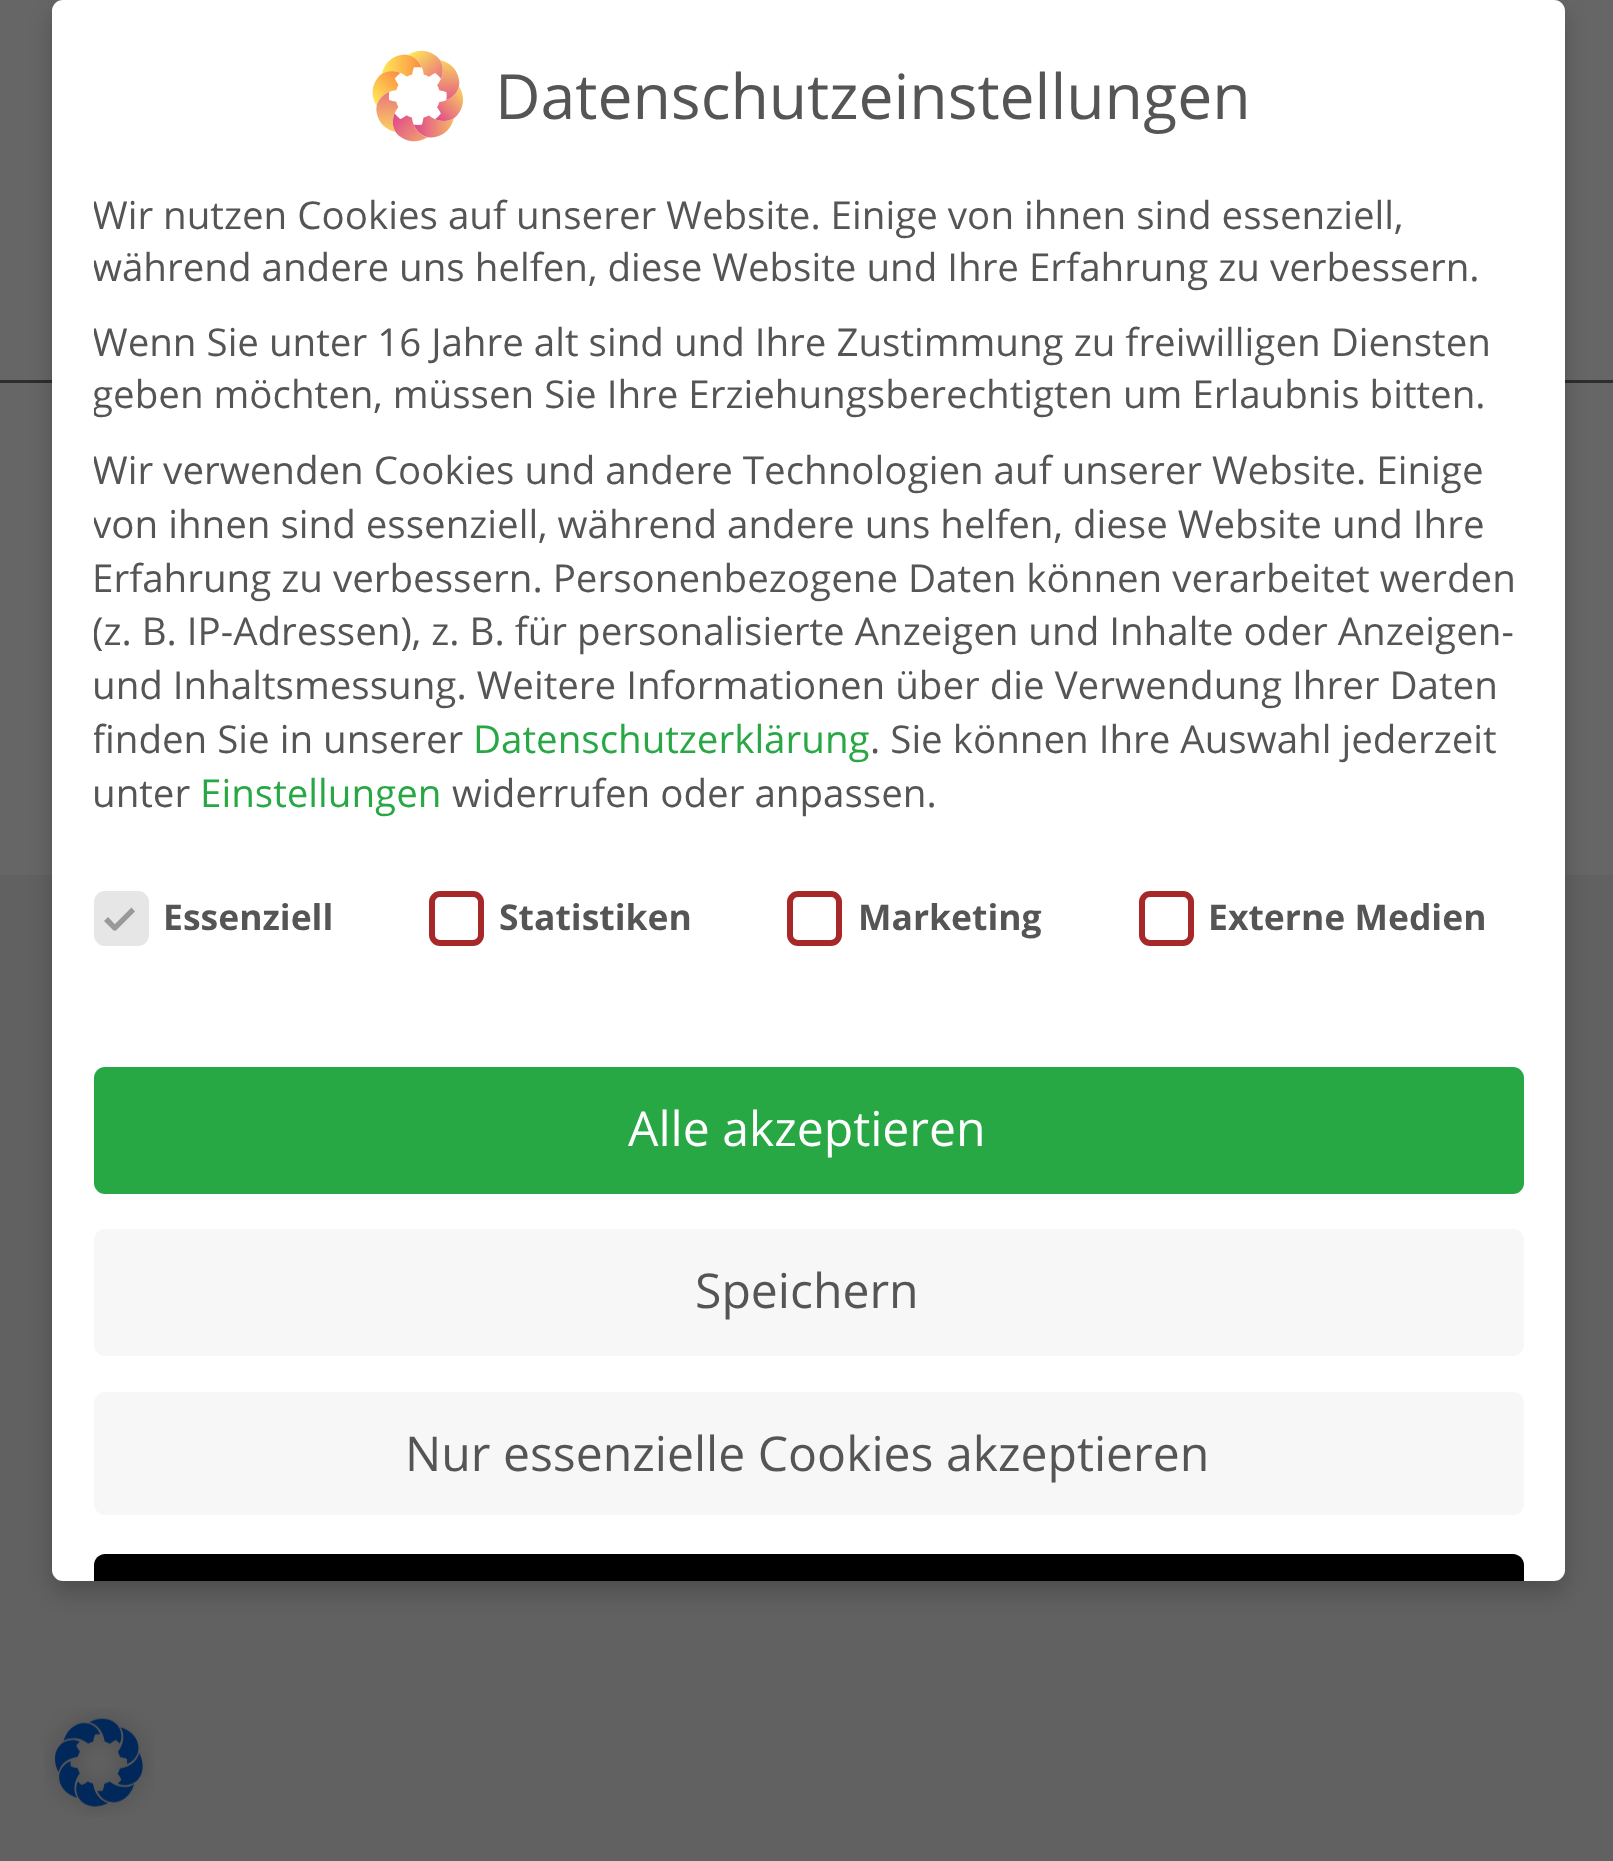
<svg xmlns="http://www.w3.org/2000/svg" xmlns:xlink="http://www.w3.org/1999/xlink" width="1613" height="1861" viewBox="0 0 1613 1861">
<style>
.cls-1{font:62.5px Open Sans;fill:#555555}
.cls-2{font:38.5px Open Sans;fill:#555555}
.cls-3{font:38.5px Open Sans;fill:#28a745}
.cls-4{font:bold 35.5px Open Sans;fill:#555555}
.cls-5{font:48.1px Open Sans;fill:#ffffff}
.cls-6{font:48.1px Open Sans;fill:#555555}
</style>
<defs>
<clipPath id="clip1"><rect x="94" y="187" width="1430" height="633"/></clipPath>
</defs>
<rect width="100%" height="100%" fill="#666666"/>
<rect fill="#2f2e2f" x="0" y="380" width="1613" height="3"/>
<rect fill="#616161" x="0" y="875" width="1613" height="986"/>
<rect fill="#000000" fill-opacity="0.2" filter="blur(11px)" x="52" y="11" width="1513" height="1581" rx="11"/>
<rect fill="#ffffff" x="52" y="0" width="1513" height="1581" rx="11"/>
<image xlink:href="image0.png" x="372" y="50" width="92" height="92"/>
<rect fill="#e6e6e6" stroke="#e6e6e6" stroke-width="6" x="97" y="894" width="49" height="49" rx="8"/>
<path fill="#999999" d="M131.5 907.5L135 911.5L115.5 931L112 927Z"/>
<path fill="#999999" d="M108 917L117.5 927L114 931L104 921Z"/>
<rect fill="none" stroke="#a72828" stroke-width="6" x="432" y="894" width="49" height="49" rx="8"/>
<rect fill="none" stroke="#a72828" stroke-width="6" x="790" y="894" width="49" height="49" rx="8"/>
<rect fill="none" stroke="#a72828" stroke-width="6" x="1142" y="894" width="49" height="49" rx="8"/>
<rect fill="#28a745" x="94" y="1067" width="1430" height="127" rx="11"/>
<rect fill="#f7f7f7" x="94" y="1229" width="1430" height="127" rx="11"/>
<rect fill="#f7f7f7" x="94" y="1392" width="1430" height="123" rx="11"/>
<path fill="#000000" d="M105 1554H1513C1519 1554 1524 1559 1524 1565V1581H94V1565C94 1559 99 1554 105 1554Z"/>
<image xlink:href="image1.png" x="44" y="1708" width="110" height="109"/>
<text class="cls-1" x="495" y="119">Datenschutzeinstellungen</text>
<g clip-path="url(#clip1)">
<text class="cls-2"><tspan x="92" y="229">Wir nutzen Cookies auf unserer Website. Einige von ihnen sind essenziell,</tspan><tspan x="92" y="281">während andere uns helfen, diese Website und Ihre Erfahrung zu verbessern.</tspan><tspan x="92" y="356">Wenn Sie unter 16 Jahre alt sind und Ihre Zustimmung zu freiwilligen Diensten</tspan><tspan x="92" y="408">geben möchten, müssen Sie Ihre Erziehungsberechtigten um Erlaubnis bitten.</tspan><tspan x="92" y="484">Wir verwenden Cookies und andere Technologien auf unserer Website. Einige</tspan><tspan x="92" y="538">von ihnen sind essenziell, während andere uns helfen, diese Website und Ihre</tspan></text>
</g>
<text class="cls-2" x="92" y="592">Erfahrung zu verbessern. Personenbezogene Daten können verarbeitet werden</text>
<g clip-path="url(#clip1)">
<text class="cls-2" x="92" y="645">(z. B. IP-Adressen), z. B. für personalisierte Anzeigen und Inhalte oder Anzeigen-</text>
</g>
<text class="cls-2" x="92" y="699">und Inhaltsmessung. Weitere Informationen über die Verwendung Ihrer Daten</text>
<g clip-path="url(#clip1)">
<text class="cls-2" x="92" y="753">finden Sie in unserer</text>
</g>
<text class="cls-3" x="473" y="753">Datenschutzerklärung</text>
<text class="cls-2" x="870" y="753">. Sie können Ihre Auswahl jederzeit</text>
<text class="cls-2" x="92" y="807">unter</text>
<text class="cls-3" x="200" y="807">Einstellungen</text>
<text class="cls-2" x="452" y="807">widerrufen oder anpassen.</text>
<text class="cls-4" x="163" y="930">Essenziell</text>
<text class="cls-4" x="499" y="930">Statistiken</text>
<text class="cls-4" x="858" y="930">Marketing</text>
<text class="cls-4" x="1208" y="930">Externe Medien</text>
<text class="cls-5" x="628" y="1146">Alle akzeptieren</text>
<text class="cls-6" x="695" y="1308">Speichern</text>
<text class="cls-6" x="405" y="1471">Nur essenzielle Cookies akzeptieren</text>
</svg>
